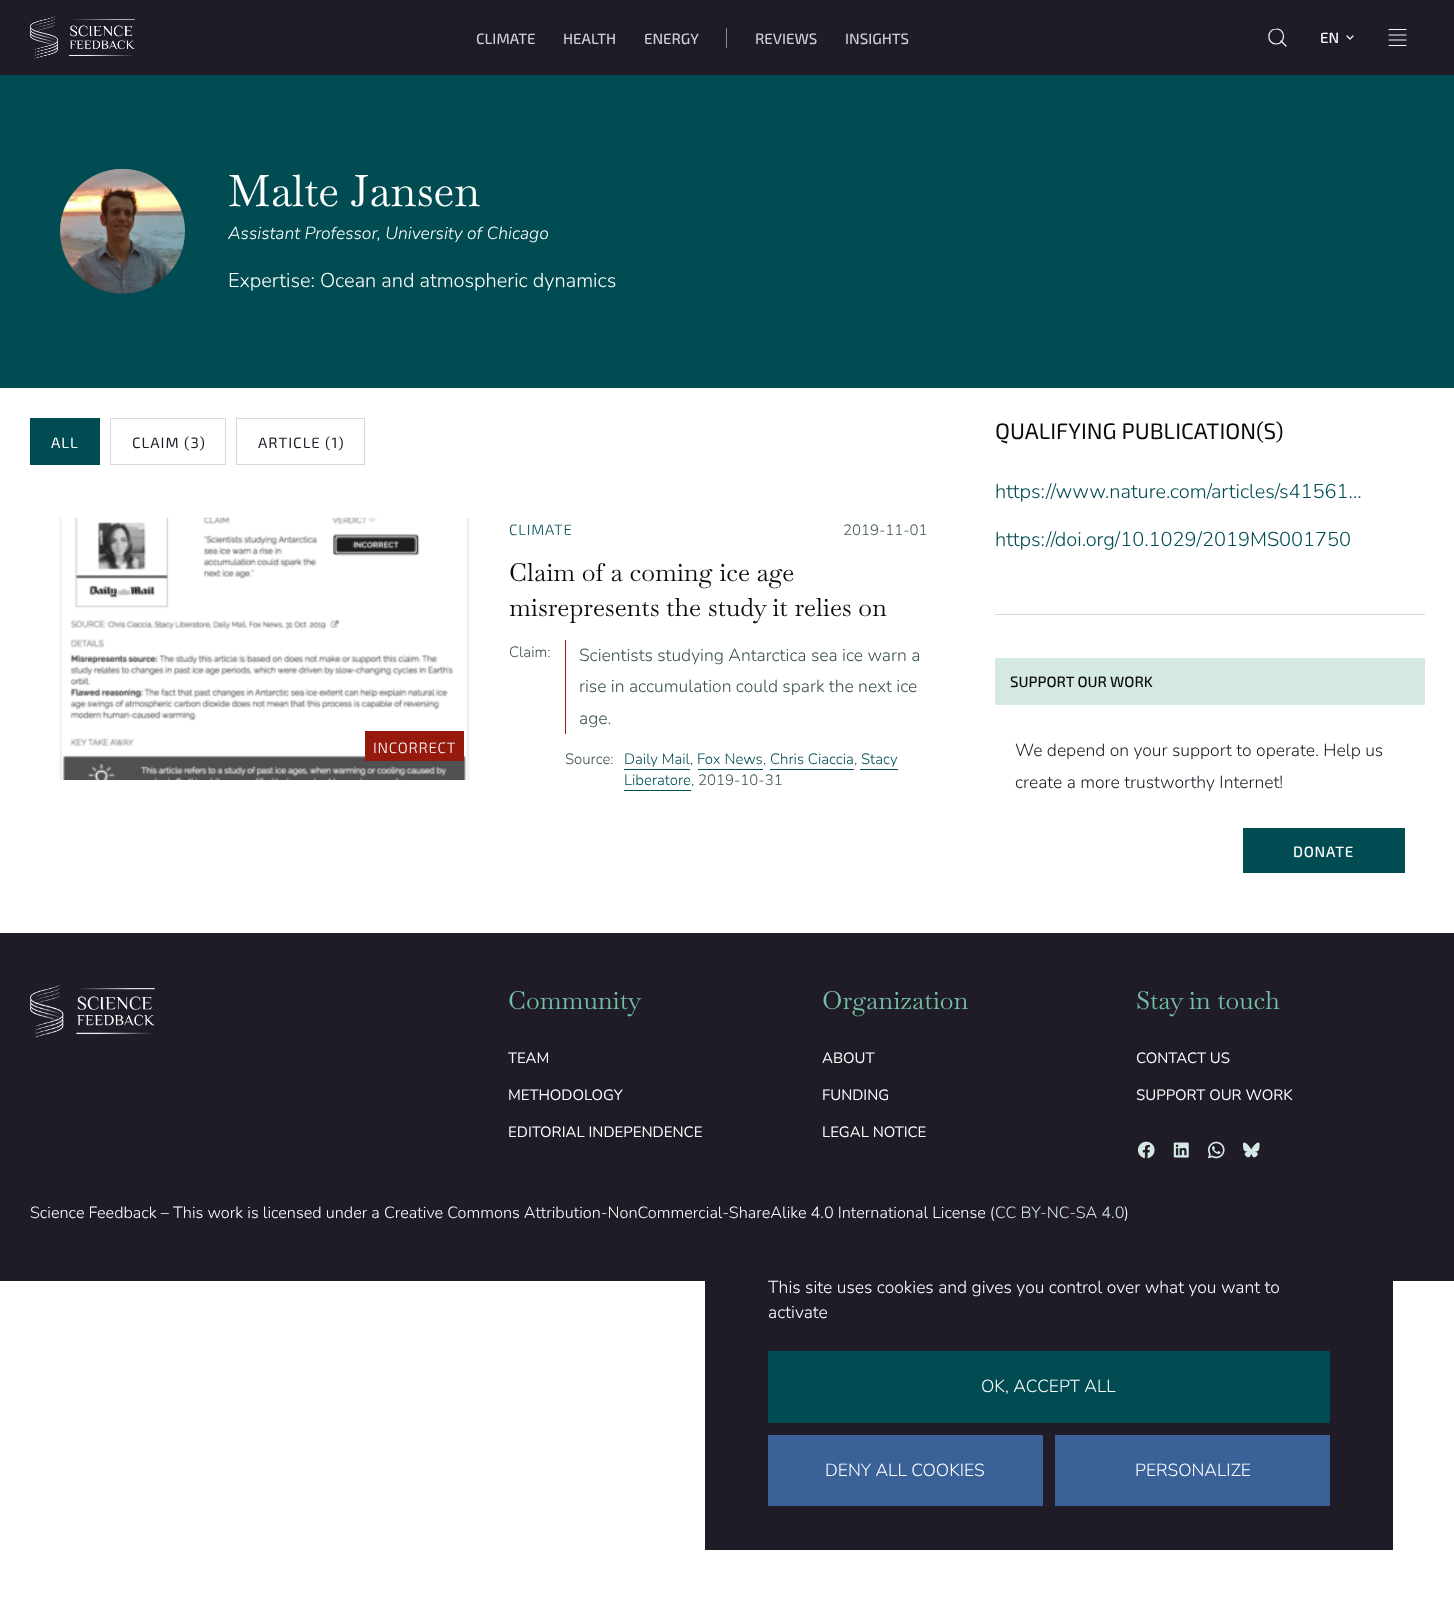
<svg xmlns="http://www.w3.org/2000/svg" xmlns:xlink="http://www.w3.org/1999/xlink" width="1454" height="1612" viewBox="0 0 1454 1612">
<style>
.cls-1{font:500 15px 'Exo 2';fill:#cfcdd5}
.cls-2{font:500 15px 'Exo 2';fill:#ffffff}
.cls-3{font:43.5px Baskervville;fill:#ffffff}
.cls-4{font:italic 300 17.5px Nunito;fill:#ffffff}
.cls-5{font:300 20px Nunito;fill:#ffffff}
.cls-6{font:15px 'Exo 2';letter-spacing:1px;fill:#ffffff}
.cls-7{font:15px 'Exo 2';letter-spacing:1px;fill:#1f1b27}
.cls-8{font:300 15px 'Exo 2';letter-spacing:0.75px;fill:#ffffff}
.cls-9{font:300 15px 'Exo 2';letter-spacing:0.75px;fill:#004c52}
.cls-10{font:300 15px Nunito;fill:#3c534d}
.cls-11{font:25px Baskervville;fill:#0a090b}
.cls-12{font:300 17.5px Nunito;fill:#3c534d}
.cls-13{font:300 15px Nunito;fill:#004c52}
.cls-14{font:22.4px 'Exo 2';fill:#0a090b}
.cls-15{font:300 20px Nunito;fill:#004c52}
.cls-16{font:500 15px 'Exo 2';fill:#0a090b}
.cls-17{font:300 17.5px Nunito;fill:#1f1b27}
.cls-18{font:500 15px 'Exo 2';letter-spacing:0.75px;fill:#ffffff}
.cls-19{font:25px Baskervville;fill:#74bea4}
.cls-20{font:15px Nunito;fill:#ffffff}
.cls-21{font:300 16.25px Nunito;fill:#ffffff}
.cls-22{font:300 16.25px Nunito;fill:#d4e8e4}
.cls-23{font:300 17.5px Nunito;fill:#ffffff}
</style>
<rect width="100%" height="100%" fill="#ffffff"/>
<rect fill="#1f1b27" x="0" y="0" width="1454" height="75"/>
<image xlink:href="image0.png" x="30" y="16" width="105" height="43"/>
<rect fill="#8d8a93" x="726" y="28" width="1" height="20"/>
<path fill="none" stroke="#fafaff" stroke-width="1.2" stroke-linecap="round" stroke-linejoin="round" d="M1286 46L1281 41M1276 44C1266.5 44 1266.5 29 1276 29C1286 28.5 1286 44 1276 44Z"/>
<path fill="none" stroke="#fafaff" stroke-width="1.2" stroke-linecap="round" stroke-linejoin="round" d="M1347 36L1350 39L1353 36M1389 35H1406M1389 29.5H1406M1389 40H1406M1389 45.5H1406"/>
<rect fill="#004c52" x="0" y="75" width="1454" height="313"/>
<image xlink:href="image1.png" x="60" y="168" width="125" height="126"/>
<rect fill="#004c52" x="30" y="418" width="70" height="47"/>
<rect fill="none" stroke="#d8d7da" x="110.5" y="418.5" width="115" height="46"/>
<rect fill="none" stroke="#d8d7da" x="236.5" y="418.5" width="128" height="46"/>
<image xlink:href="image2.png" x="59" y="517" width="411" height="263"/>
<rect fill="#95190c" x="365" y="731" width="99" height="30"/>
<rect fill="#95190c" x="565" y="640" width="1" height="94"/>
<rect fill="#004c52" x="624" y="769" width="66" height="1"/>
<rect fill="#004c52" x="698" y="769" width="65" height="1"/>
<rect fill="#004c52" x="770" y="769" width="84" height="1"/>
<rect fill="#004c52" x="860" y="769" width="38" height="1"/>
<rect fill="#004c52" x="624" y="790" width="67" height="1"/>
<rect fill="#d8d7da" x="995" y="614" width="430" height="1"/>
<rect fill="#d4e8e4" x="995" y="658" width="430" height="47"/>
<rect fill="#004c52" x="1243" y="828" width="162" height="45"/>
<rect fill="#1f1b27" x="0" y="933" width="1454" height="348"/>
<image xlink:href="image3.png" x="30" y="985" width="125" height="53"/>
<image xlink:href="image4.png" x="1137" y="1141" width="18" height="18"/>
<image xlink:href="image5.png" x="1173" y="1142" width="16" height="16"/>
<image xlink:href="image6.png" x="1207" y="1141" width="18" height="18"/>
<image xlink:href="image7.png" x="1242" y="1142" width="18" height="16"/>
<rect fill="#1f1b27" x="705" y="1281" width="688" height="269"/>
<rect fill="#004c52" x="768" y="1351" width="562" height="72"/>
<rect fill="#3a6298" x="768" y="1435" width="275" height="71"/>
<rect fill="#3a6298" x="1055" y="1435" width="275" height="71"/>
<text class="cls-1" x="476" y="44">CLIMATE</text>
<text class="cls-1" x="563" y="44">HEALTH</text>
<text class="cls-1" x="644" y="44">ENERGY</text>
<text class="cls-1" x="755" y="44">REVIEWS</text>
<text class="cls-1" x="845" y="44">INSIGHTS</text>
<text class="cls-2" x="1320" y="43">EN</text>
<text class="cls-3" x="228" y="206">Malte Jansen</text>
<text class="cls-4" x="228" y="239">Assistant Professor, University of Chicago</text>
<text class="cls-5" x="228" y="287">Expertise: Ocean and atmospheric dynamics</text>
<text class="cls-6" x="51" y="448">ALL</text>
<text class="cls-7" x="132" y="448">CLAIM (3)</text>
<text class="cls-7" x="258" y="448">ARTICLE (1)</text>
<text class="cls-8" x="373" y="753">INCORRECT</text>
<text class="cls-9" x="509" y="535">CLIMATE</text>
<text class="cls-10" x="843" y="535">2019-11-01</text>
<text class="cls-11"><tspan x="509" y="581">Claim of a coming ice age</tspan><tspan x="509" y="616">misrepresents the study it relies on</tspan></text>
<text class="cls-10" x="509" y="657">Claim:</text>
<text class="cls-12"><tspan x="579" y="661">Scientists studying Antarctica sea ice warn a</tspan><tspan x="579" y="692">rise in accumulation could spark the next ice</tspan><tspan x="579" y="724">age.</tspan></text>
<text class="cls-10" x="565" y="764">Source:</text>
<text class="cls-13" x="624" y="764">Daily Mail</text>
<text class="cls-10" x="690" y="764">,</text>
<text class="cls-13" x="697" y="764">Fox News</text>
<text class="cls-10" x="763" y="764">,</text>
<text class="cls-13" x="770" y="764">Chris Ciaccia</text>
<text class="cls-10" x="854" y="764">,</text>
<text class="cls-13" x="861" y="764">Stacy</text>
<text class="cls-13" x="624" y="785">Liberatore</text>
<text class="cls-10" x="691" y="785">, 2019-10-31</text>
<text class="cls-14" x="995" y="439">QUALIFYING PUBLICATION(S)</text>
<text class="cls-15" x="995" y="498">https://www.nature.com/articles/s41561…</text>
<text class="cls-15" x="995" y="546">https://doi.org/10.1029/2019MS001750</text>
<text class="cls-16" x="1010" y="687">SUPPORT OUR WORK</text>
<text class="cls-17"><tspan x="1015" y="756">We depend on your support to operate. Help us</tspan><tspan x="1015" y="788">create a more trustworthy Internet!</tspan></text>
<text class="cls-18" x="1293" y="857">DONATE</text>
<text class="cls-19" x="508" y="1009">Community</text>
<text class="cls-20" x="508" y="1063">TEAM</text>
<text class="cls-20" x="508" y="1100">METHODOLOGY</text>
<text class="cls-20" x="508" y="1137">EDITORIAL INDEPENDENCE</text>
<text class="cls-19" x="822" y="1009">Organization</text>
<text class="cls-20" x="822" y="1063">ABOUT</text>
<text class="cls-20" x="822" y="1100">FUNDING</text>
<text class="cls-20" x="822" y="1137">LEGAL NOTICE</text>
<text class="cls-19" x="1136" y="1009">Stay in touch</text>
<text class="cls-20" x="1136" y="1063">CONTACT US</text>
<text class="cls-20" x="1136" y="1100">SUPPORT OUR WORK</text>
<text class="cls-21" x="30" y="1218">Science Feedback – This work is licensed under a Creative Commons Attribution-NonCommercial-ShareAlike 4.0 International License (</text>
<text class="cls-22" x="995" y="1218">CC BY-NC-SA 4.0</text>
<text class="cls-21" x="1124" y="1218">)</text>
<text class="cls-23"><tspan x="768" y="1293">This site uses cookies and gives you control over what you want to</tspan><tspan x="768" y="1318">activate</tspan></text>
<text class="cls-23" x="981" y="1392">OK, ACCEPT ALL</text>
<text class="cls-23" x="825" y="1476">DENY ALL COOKIES</text>
<text class="cls-23" x="1135" y="1476">PERSONALIZE</text>
</svg>
